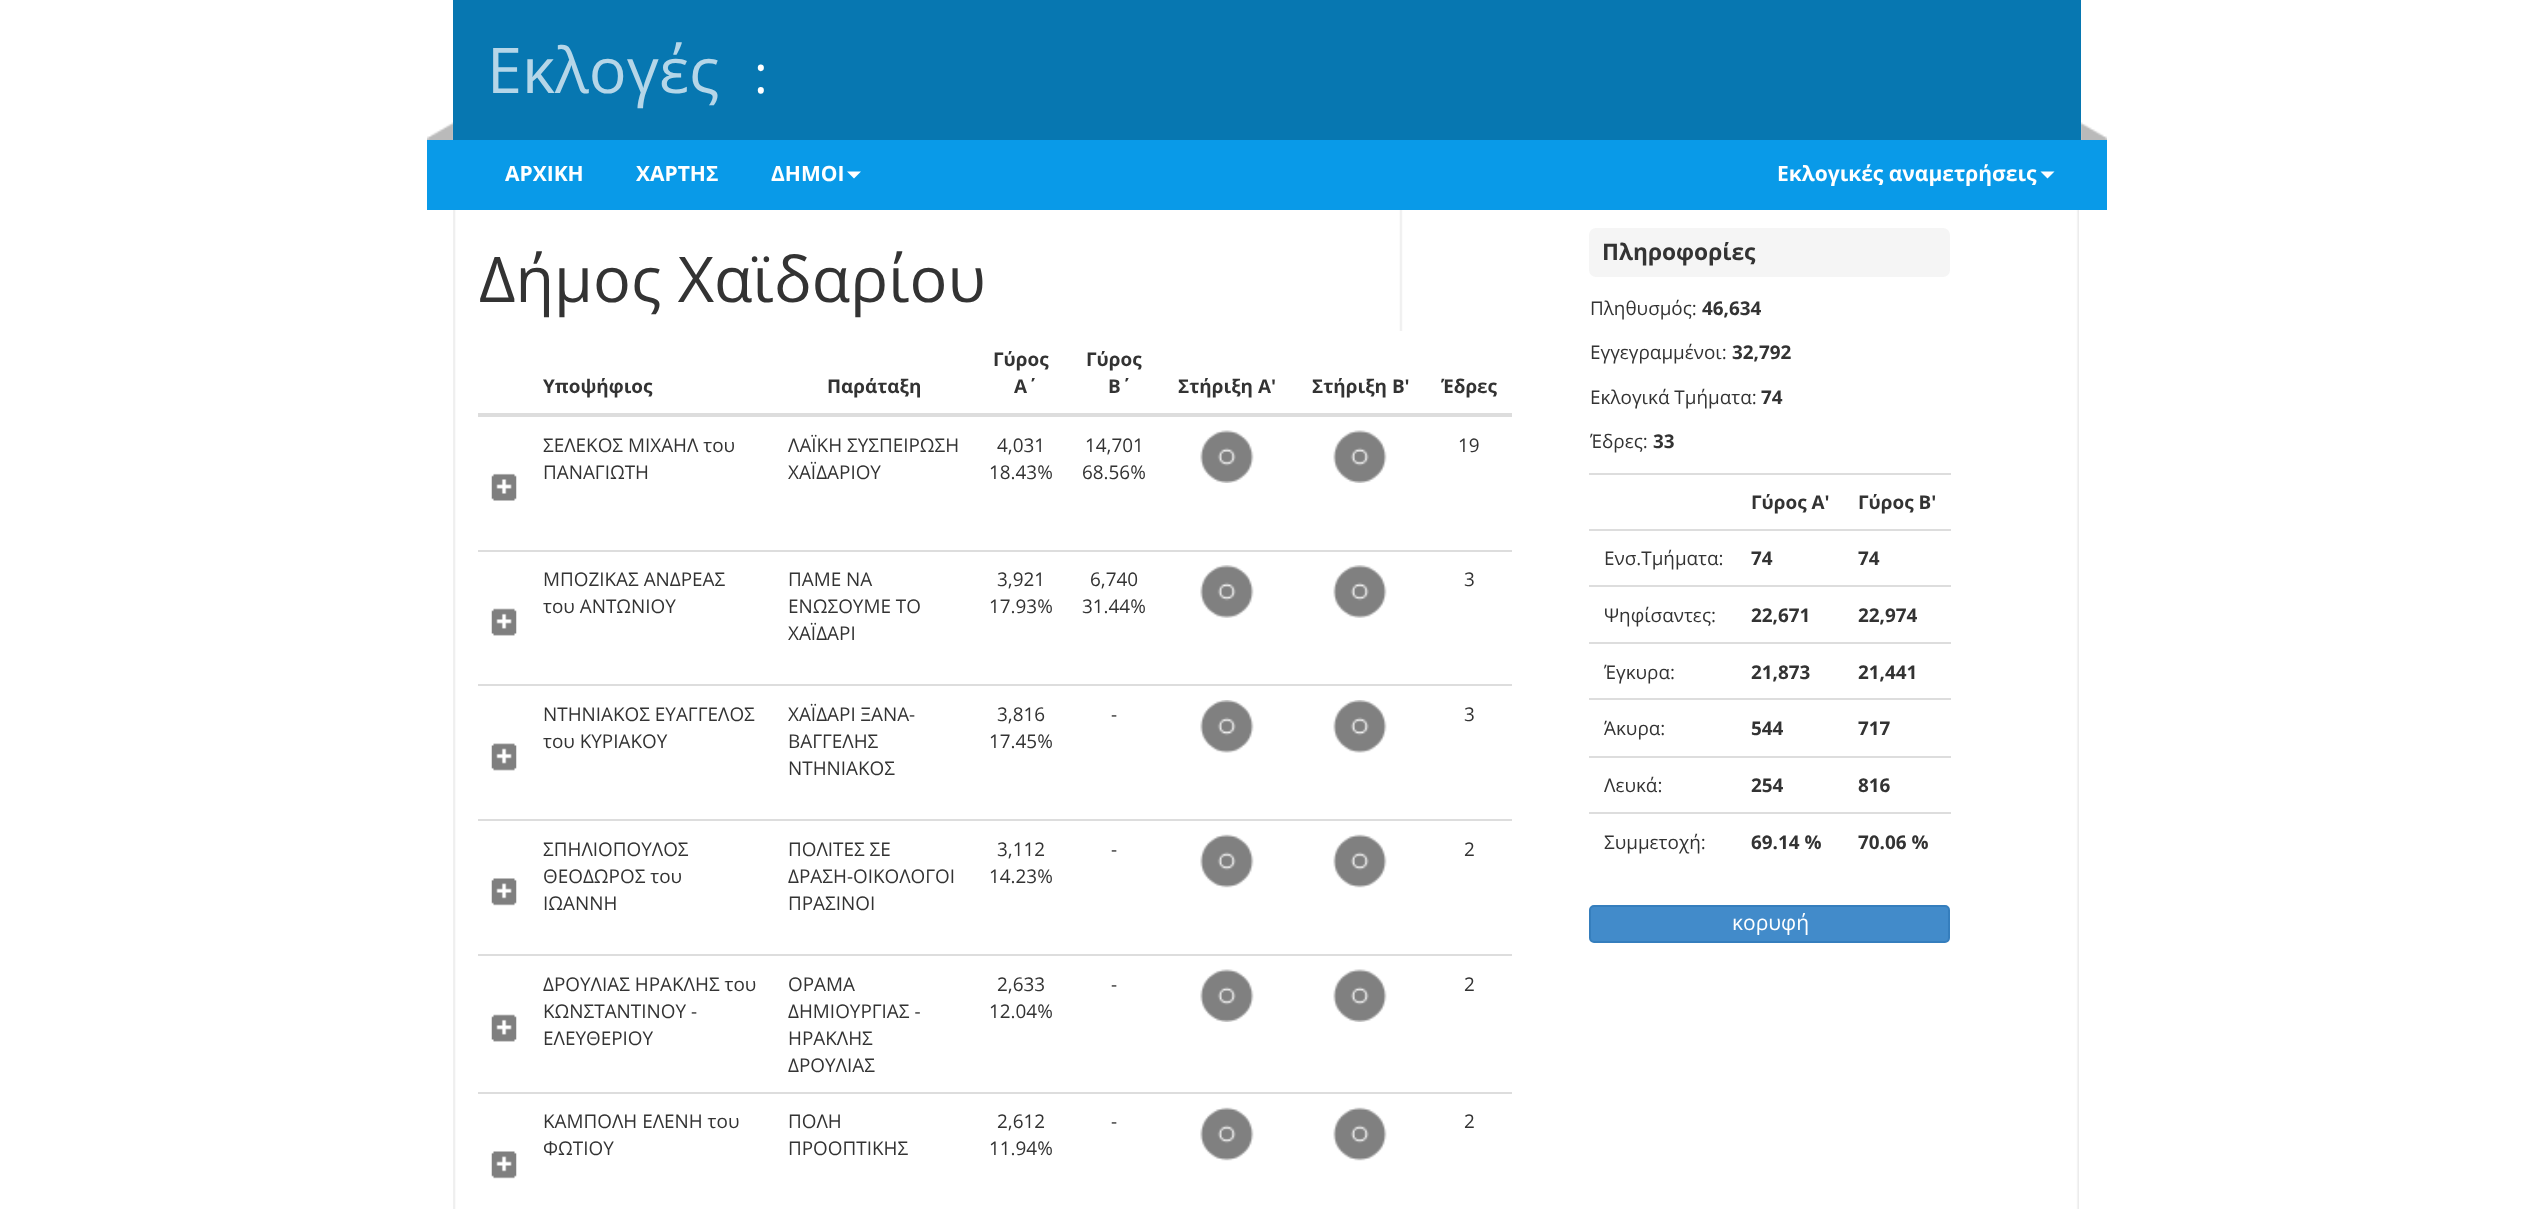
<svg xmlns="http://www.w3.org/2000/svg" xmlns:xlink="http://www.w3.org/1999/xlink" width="2531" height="1209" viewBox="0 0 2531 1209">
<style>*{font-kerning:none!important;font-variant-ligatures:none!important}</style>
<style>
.cls-1{font:63px Open Sans;fill:#b5d6e8}
.cls-2{font:52px Open Sans;fill:#ffffff}
.cls-3{font:bold 21px Open Sans;fill:#ffffff}
.cls-4{font:63px Open Sans;fill:#333333}
.cls-5{font:bold 18.9px Open Sans;fill:#333333}
.cls-6{font:18.9px Open Sans;fill:#333333}
.cls-7{font:bold 22.75px Open Sans;fill:#333333}
.cls-8{font:21px Open Sans;fill:#ffffff}
</style>
<rect width="100%" height="100%" fill="#ffffff"/>
<image xlink:href="image0.png" x="427" y="122" width="1680" height="18"/>
<rect fill="#0777b1" x="453" y="0" width="1628" height="140"/>
<rect fill="#099ae8" x="427" y="140" width="1680" height="70"/>
<path fill="#ffffff" d="M847 171.5H861L854 178.5Z"/>
<path fill="#ffffff" d="M2040.5 171.5H2054.5L2047.5 178.5Z"/>
<image xlink:href="image1.png" x="453" y="210" width="1626" height="999"/>
<rect fill="#ffffff" x="1399" y="331" width="4" height="82"/>
<rect fill="#dddddd" x="478" y="413" width="1034" height="4"/>
<rect fill="#ffffff" x="1399" y="417" width="4" height="133"/>
<image xlink:href="image2.png" x="1200" y="430" width="54" height="53"/>
<image xlink:href="image3.png" x="1333" y="430" width="54" height="53"/>
<image xlink:href="image4.png" x="491" y="473" width="26" height="28"/>
<rect fill="#ffffff" x="1399" y="552" width="4" height="132"/>
<image xlink:href="image5.png" x="1200" y="565" width="54" height="53"/>
<image xlink:href="image6.png" x="1333" y="565" width="54" height="53"/>
<rect fill="#dddddd" x="478" y="550" width="1034" height="2"/>
<image xlink:href="image7.png" x="491" y="608" width="26" height="28"/>
<rect fill="#ffffff" x="1399" y="686" width="4" height="133"/>
<image xlink:href="image8.png" x="1200" y="700" width="54" height="53"/>
<image xlink:href="image9.png" x="1333" y="700" width="54" height="53"/>
<rect fill="#dddddd" x="478" y="684" width="1034" height="2"/>
<image xlink:href="image10.png" x="491" y="743" width="26" height="28"/>
<rect fill="#ffffff" x="1399" y="821" width="4" height="133"/>
<image xlink:href="image11.png" x="1200" y="834" width="54" height="54"/>
<image xlink:href="image12.png" x="1333" y="834" width="54" height="54"/>
<rect fill="#dddddd" x="478" y="819" width="1034" height="2"/>
<image xlink:href="image13.png" x="491" y="878" width="26" height="28"/>
<rect fill="#ffffff" x="1399" y="956" width="4" height="136"/>
<image xlink:href="image14.png" x="1200" y="969" width="54" height="53"/>
<image xlink:href="image15.png" x="1333" y="969" width="54" height="53"/>
<rect fill="#dddddd" x="478" y="954" width="1034" height="2"/>
<image xlink:href="image7.png" x="491" y="1014" width="26" height="28"/>
<rect fill="#ffffff" x="1399" y="1094" width="4" height="115"/>
<image xlink:href="image11.png" x="1200" y="1107" width="54" height="54"/>
<image xlink:href="image12.png" x="1333" y="1107" width="54" height="54"/>
<rect fill="#dddddd" x="478" y="1092" width="1034" height="2"/>
<image xlink:href="image13.png" x="491" y="1151" width="26" height="28"/>
<rect fill="#f5f5f5" x="1589" y="228" width="361" height="49" rx="7"/>
<rect fill="#dddddd" x="1589" y="473" width="362" height="2"/>
<rect fill="#dddddd" x="1589" y="529" width="362" height="2"/>
<rect fill="#dddddd" x="1589" y="585" width="362" height="2"/>
<rect fill="#dddddd" x="1589" y="642" width="362" height="2"/>
<rect fill="#dddddd" x="1589" y="698" width="362" height="2"/>
<rect fill="#dddddd" x="1589" y="756" width="362" height="2"/>
<rect fill="#dddddd" x="1589" y="812" width="362" height="2"/>
<rect fill="#428bca" stroke="#357ebd" stroke-width="2" x="1590" y="906" width="359" height="36" rx="4"/>
<text class="cls-1" x="487" y="93">Εκλογές</text>
<text class="cls-2" x="754" y="93">:</text>
<text class="cls-3" x="505" y="181">ΑΡΧΙΚΗ</text>
<text class="cls-3" x="636" y="181">ΧΑΡΤΗΣ</text>
<text class="cls-3" x="771" y="181">ΔΗΜΟΙ</text>
<text class="cls-3" x="1777" y="181">Εκλογικές αναμετρήσεις</text>
<text class="cls-4" x="479" y="302">Δήμος Χαϊδαρίου</text>
<text class="cls-5" x="543" y="393">Υποψήφιος</text>
<text class="cls-5" x="827" y="393">Παράταξη</text>
<text class="cls-5" x="993" y="366">Γύρος</text>
<text class="cls-5" x="1014" y="393">Α΄</text>
<text class="cls-5" x="1086" y="366">Γύρος</text>
<text class="cls-5" x="1108" y="393">Β΄</text>
<text class="cls-5" x="1178" y="393">Στήριξη Α'</text>
<text class="cls-5" x="1312" y="393">Στήριξη Β'</text>
<text class="cls-5" x="1441" y="393">Έδρες</text>
<text class="cls-6"><tspan x="543" y="452">ΣΕΛΕΚΟΣ ΜΙΧΑΗΛ του</tspan><tspan x="543" y="479">ΠΑΝΑΓΙΩΤΗ</tspan></text>
<text class="cls-6"><tspan x="788" y="452">ΛΑΪΚΗ ΣΥΣΠΕΙΡΩΣΗ</tspan><tspan x="788" y="479">ΧΑΪΔΑΡΙΟΥ</tspan></text>
<text class="cls-6" x="997" y="452">4,031</text>
<text class="cls-6" x="989" y="479">18.43%</text>
<text class="cls-6" x="1085" y="452">14,701</text>
<text class="cls-6" x="1082" y="479">68.56%</text>
<text class="cls-6" x="1458" y="452">19</text>
<text class="cls-6"><tspan x="543" y="586">ΜΠΟΖΙΚΑΣ ΑΝΔΡΕΑΣ</tspan><tspan x="543" y="613">του ΑΝΤΩΝΙΟΥ</tspan></text>
<text class="cls-6"><tspan x="788" y="586">ΠΑΜΕ ΝΑ</tspan><tspan x="788" y="613">ΕΝΩΣΟΥΜΕ ΤΟ</tspan><tspan x="788" y="640">ΧΑΪΔΑΡΙ</tspan></text>
<text class="cls-6" x="997" y="586">3,921</text>
<text class="cls-6" x="989" y="613">17.93%</text>
<text class="cls-6" x="1090" y="586">6,740</text>
<text class="cls-6" x="1082" y="613">31.44%</text>
<text class="cls-6" x="1464" y="586">3</text>
<text class="cls-6"><tspan x="543" y="721">ΝΤΗΝΙΑΚΟΣ ΕΥΑΓΓΕΛΟΣ</tspan><tspan x="543" y="748">του ΚΥΡΙΑΚΟΥ</tspan></text>
<text class="cls-6"><tspan x="788" y="721">ΧΑΪΔΑΡΙ ΞΑΝΑ-</tspan><tspan x="788" y="748">ΒΑΓΓΕΛΗΣ</tspan><tspan x="788" y="775">ΝΤΗΝΙΑΚΟΣ</tspan></text>
<text class="cls-6" x="997" y="721">3,816</text>
<text class="cls-6" x="989" y="748">17.45%</text>
<text class="cls-6" x="1111" y="721">-</text>
<text class="cls-6" x="1464" y="721">3</text>
<text class="cls-6"><tspan x="543" y="856">ΣΠΗΛΙΟΠΟΥΛΟΣ</tspan><tspan x="543" y="883">ΘΕΟΔΩΡΟΣ του</tspan><tspan x="543" y="910">ΙΩΑΝΝΗ</tspan></text>
<text class="cls-6"><tspan x="788" y="856">ΠΟΛΙΤΕΣ ΣΕ</tspan><tspan x="788" y="883">ΔΡΑΣΗ-ΟΙΚΟΛΟΓΟΙ</tspan><tspan x="788" y="910">ΠΡΑΣΙΝΟΙ</tspan></text>
<text class="cls-6" x="997" y="856">3,112</text>
<text class="cls-6" x="989" y="883">14.23%</text>
<text class="cls-6" x="1111" y="856">-</text>
<text class="cls-6" x="1464" y="856">2</text>
<text class="cls-6"><tspan x="543" y="991">ΔΡΟΥΛΙΑΣ ΗΡΑΚΛΗΣ του</tspan><tspan x="543" y="1018">ΚΩΝΣΤΑΝΤΙΝΟΥ -</tspan><tspan x="543" y="1045">ΕΛΕΥΘΕΡΙΟΥ</tspan></text>
<text class="cls-6"><tspan x="788" y="991">ΟΡΑΜΑ</tspan><tspan x="788" y="1018">ΔΗΜΙΟΥΡΓΙΑΣ -</tspan><tspan x="788" y="1045">ΗΡΑΚΛΗΣ</tspan><tspan x="788" y="1072">ΔΡΟΥΛΙΑΣ</tspan></text>
<text class="cls-6" x="997" y="991">2,633</text>
<text class="cls-6" x="989" y="1018">12.04%</text>
<text class="cls-6" x="1111" y="991">-</text>
<text class="cls-6" x="1464" y="991">2</text>
<text class="cls-6"><tspan x="543" y="1128">ΚΑΜΠΟΛΗ ΕΛΕΝΗ του</tspan><tspan x="543" y="1155">ΦΩΤΙΟΥ</tspan></text>
<text class="cls-6"><tspan x="788" y="1128">ΠΟΛΗ</tspan><tspan x="788" y="1155">ΠΡΟΟΠΤΙΚΗΣ</tspan></text>
<text class="cls-6" x="997" y="1128">2,612</text>
<text class="cls-6" x="989" y="1155">11.94%</text>
<text class="cls-6" x="1111" y="1128">-</text>
<text class="cls-6" x="1464" y="1128">2</text>
<text class="cls-7" x="1602" y="260">Πληροφορίες</text>
<text class="cls-6" x="1590" y="315">Πληθυσμός:</text>
<text class="cls-5" x="1702" y="315">46,634</text>
<text class="cls-6" x="1590" y="359">Εγγεγραμμένοι:</text>
<text class="cls-5" x="1732" y="359">32,792</text>
<text class="cls-6" x="1590" y="404">Εκλογικά Τμήματα:</text>
<text class="cls-5" x="1761" y="404">74</text>
<text class="cls-6" x="1590" y="448">Έδρες:</text>
<text class="cls-5" x="1653" y="448">33</text>
<text class="cls-5" x="1751" y="509">Γύρος A'</text>
<text class="cls-5" x="1858" y="509">Γύρος B'</text>
<text class="cls-6" x="1604" y="565">Ενσ.Τμήματα:</text>
<text class="cls-5" x="1751" y="565">74</text>
<text class="cls-5" x="1858" y="565">74</text>
<text class="cls-6" x="1604" y="622">Ψηφίσαντες:</text>
<text class="cls-5" x="1751" y="622">22,671</text>
<text class="cls-5" x="1858" y="622">22,974</text>
<text class="cls-6" x="1604" y="679">Έγκυρα:</text>
<text class="cls-5" x="1751" y="679">21,873</text>
<text class="cls-5" x="1858" y="679">21,441</text>
<text class="cls-6" x="1604" y="735">Άκυρα:</text>
<text class="cls-5" x="1751" y="735">544</text>
<text class="cls-5" x="1858" y="735">717</text>
<text class="cls-6" x="1604" y="792">Λευκά:</text>
<text class="cls-5" x="1751" y="792">254</text>
<text class="cls-5" x="1858" y="792">816</text>
<text class="cls-6" x="1604" y="849">Συμμετοχή:</text>
<text class="cls-5" x="1751" y="849">69.14 %</text>
<text class="cls-5" x="1858" y="849">70.06 %</text>
<text class="cls-8" x="1732" y="930">κορυφή</text>
</svg>
